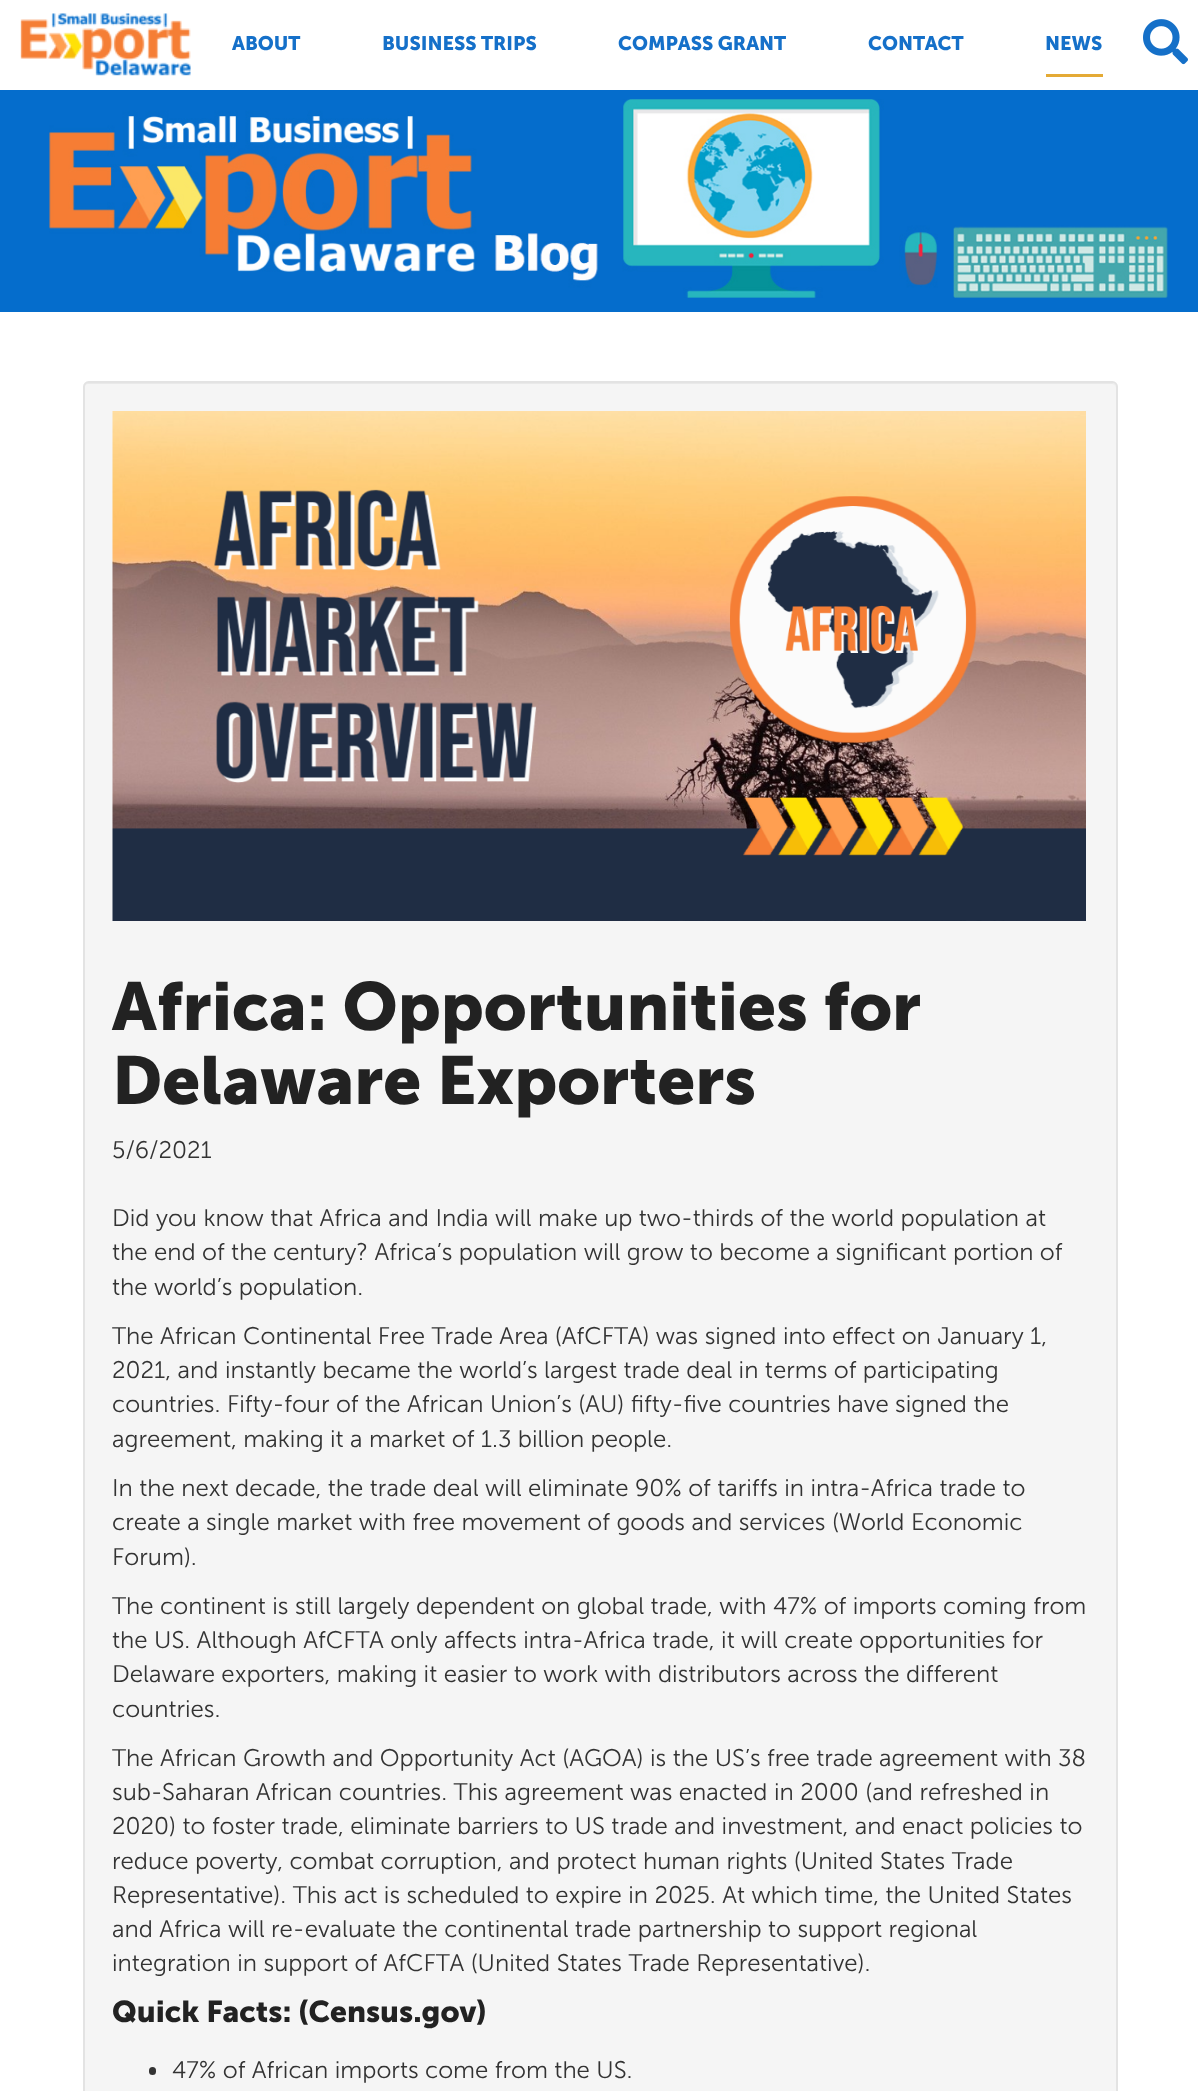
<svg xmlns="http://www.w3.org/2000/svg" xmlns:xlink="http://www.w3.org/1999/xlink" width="1198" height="2091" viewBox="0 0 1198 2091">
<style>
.cls-1{font:bold 19.5px Museo Sans;fill:#1570c9}
.cls-2{font:bold 67.5px Museo Sans;fill:#222222}
.cls-3{font:300 24px Museo Sans;fill:#333333}
.cls-4{font:bold 30px Museo Sans;fill:#222222}
</style>
<rect width="100%" height="100%" fill="#ffffff"/>
<image xlink:href="image0.png" x="20" y="13" width="171" height="63"/>
<rect fill="#e4aa35" x="1046" y="74" width="57" height="3"/>
<image xlink:href="image1.png" x="1143" y="19" width="45" height="46"/>
<rect fill="#056dcc" x="0" y="90" width="1198" height="222"/>
<image xlink:href="image2.png" x="49" y="99" width="1119" height="199"/>
<rect fill="#f5f5f5" x="83" y="381" width="1035" height="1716" rx="6"/>
<path fill="#e9e9e9" d="M88 384H1112C1114 384 1116 386 1116 388C1116 385 1114 383 1111 383H89C86 383 84 385 84 388C84 386 86 384 88 384Z"/>
<rect fill="none" stroke="#e3e3e3" stroke-width="2" x="84" y="382" width="1033" height="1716" rx="5"/>
<image xlink:href="image3.png" x="112" y="411" width="974" height="510"/>
<rect fill="#333333" x="149" y="2067" width="7" height="8" rx="3.5"/>
<text class="cls-1" x="232" y="50">ABOUT</text>
<text class="cls-1" x="382" y="50">BUSINESS TRIPS</text>
<text class="cls-1" x="618" y="50">COMPASS GRANT</text>
<text class="cls-1" x="868" y="50">CONTACT</text>
<text class="cls-1" x="1045" y="50">NEWS</text>
<text class="cls-2"><tspan x="112" y="1030">Africa: Opportunities for</tspan><tspan x="112" y="1104">Delaware Exporters</tspan></text>
<text class="cls-3" x="112" y="1158">5/6/2021</text>
<text class="cls-3"><tspan x="112" y="1226">Did you know that Africa and India will make up two-thirds of the world population at</tspan><tspan x="112" y="1260">the end of the century? Africa’s population will grow to become a significant portion of</tspan><tspan x="112" y="1295">the world’s population.</tspan></text>
<text class="cls-3"><tspan x="112" y="1344">The African Continental Free Trade Area (AfCFTA) was signed into effect on January 1,</tspan><tspan x="112" y="1378">2021, and instantly became the world’s largest trade deal in terms of participating</tspan><tspan x="112" y="1412">countries. Fifty-four of the African Union’s (AU) fifty-five countries have signed the</tspan><tspan x="112" y="1447">agreement, making it a market of 1.3 billion people.</tspan></text>
<text class="cls-3"><tspan x="112" y="1496">In the next decade, the trade deal will eliminate 90% of tariffs in intra-Africa trade to</tspan><tspan x="112" y="1530">create a single market with free movement of goods and services (World Economic</tspan><tspan x="112" y="1565">Forum).</tspan></text>
<text class="cls-3"><tspan x="112" y="1614">The continent is still largely dependent on global trade, with 47% of imports coming from</tspan><tspan x="112" y="1648">the US. Although AfCFTA only affects intra-Africa trade, it will create opportunities for</tspan><tspan x="112" y="1682">Delaware exporters, making it easier to work with distributors across the different</tspan><tspan x="112" y="1717">countries.</tspan></text>
<text class="cls-3"><tspan x="112" y="1766">The African Growth and Opportunity Act (AGOA) is the US’s free trade agreement with 38</tspan><tspan x="112" y="1800">sub-Saharan African countries. This agreement was enacted in 2000 (and refreshed in</tspan><tspan x="112" y="1834">2020) to foster trade, eliminate barriers to US trade and investment, and enact policies to</tspan><tspan x="112" y="1869">reduce poverty, combat corruption, and protect human rights (United States Trade</tspan><tspan x="112" y="1903">Representative). This act is scheduled to expire in 2025. At which time, the United States</tspan><tspan x="112" y="1937">and Africa will re-evaluate the continental trade partnership to support regional</tspan><tspan x="112" y="1971">integration in support of AfCFTA (United States Trade Representative).</tspan></text>
<text class="cls-4" x="112" y="2022">Quick Facts: (Census.gov)</text>
<text class="cls-3" x="172" y="2078">47% of African imports come from the US.</text>
</svg>
